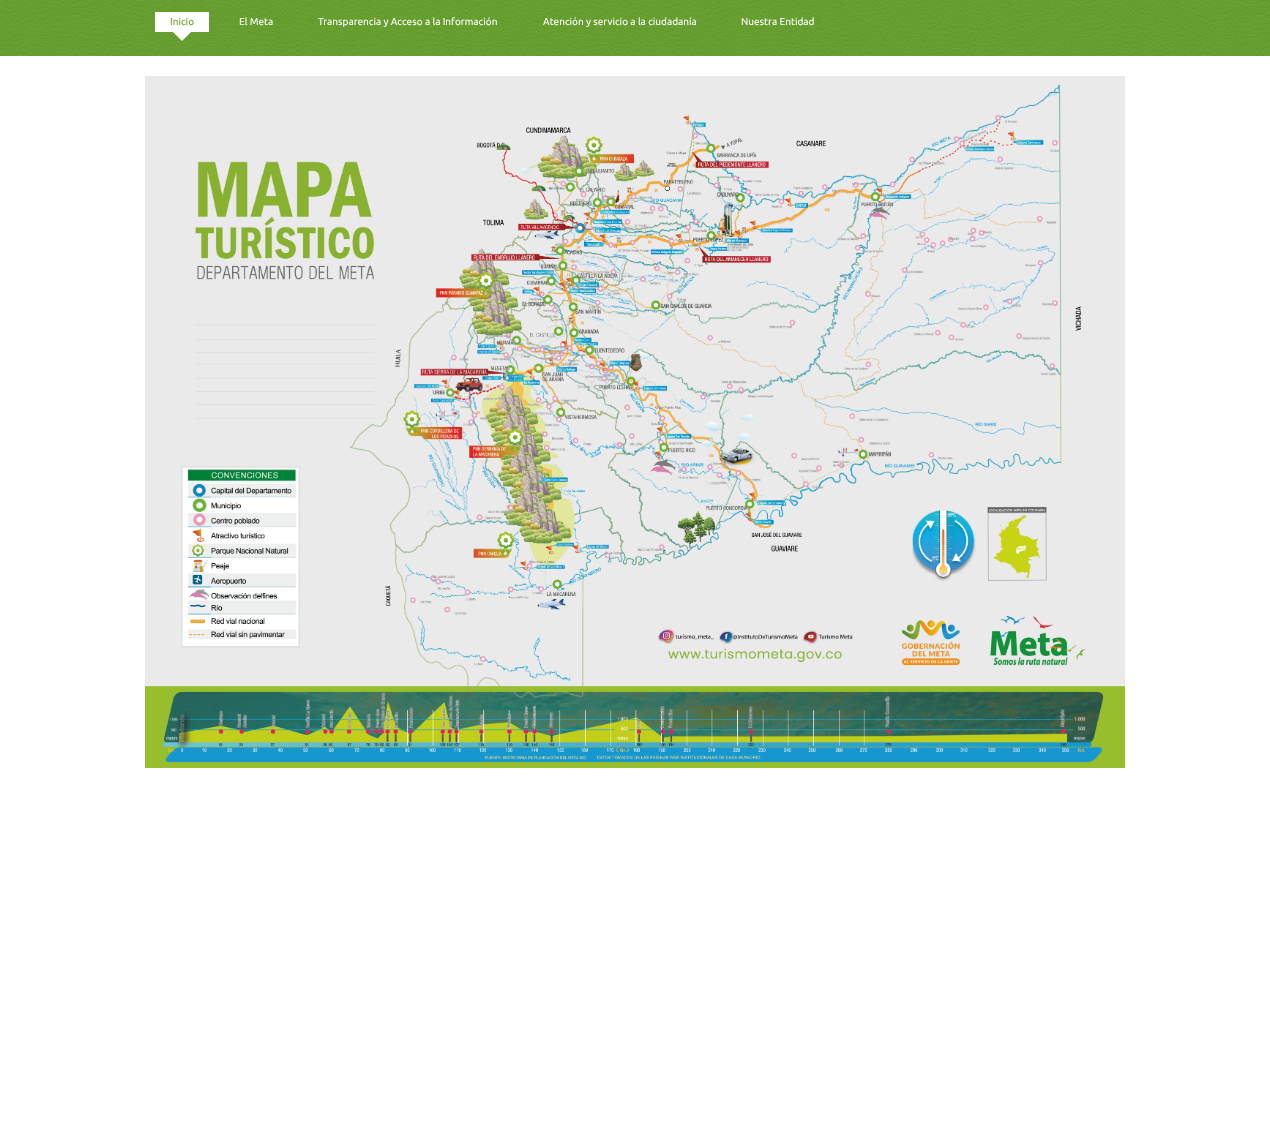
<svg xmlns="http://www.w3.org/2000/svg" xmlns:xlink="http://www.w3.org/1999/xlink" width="1270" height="1130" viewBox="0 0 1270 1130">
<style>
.cls-1{font:10px Ubuntu;fill:#63a424}
.cls-2{font:10px Ubuntu;fill:#ffffff}
</style>
<rect width="100%" height="100%" fill="#ffffff"/>
<rect fill="#63a424" x="0" y="0" width="1270" height="56"/>
<image xlink:href="image0.png" x="0" y="0" width="1270" height="56"/>
<image xlink:href="image1.png" x="173" y="32" width="18" height="9"/>
<rect fill="#ffffff" x="155" y="12" width="54" height="20"/>
<image xlink:href="image2.png" x="145" y="76" width="980" height="692"/>
<text class="cls-1" x="170" y="25">Inicio</text>
<text class="cls-2" x="239" y="25">El Meta</text>
<text class="cls-2" x="318" y="25">Transparencia y Acceso a la Información</text>
<text class="cls-2" x="543" y="25">Atención y servicio a la ciudadanía</text>
<text class="cls-2" x="741" y="25">Nuestra Entidad</text>
</svg>
